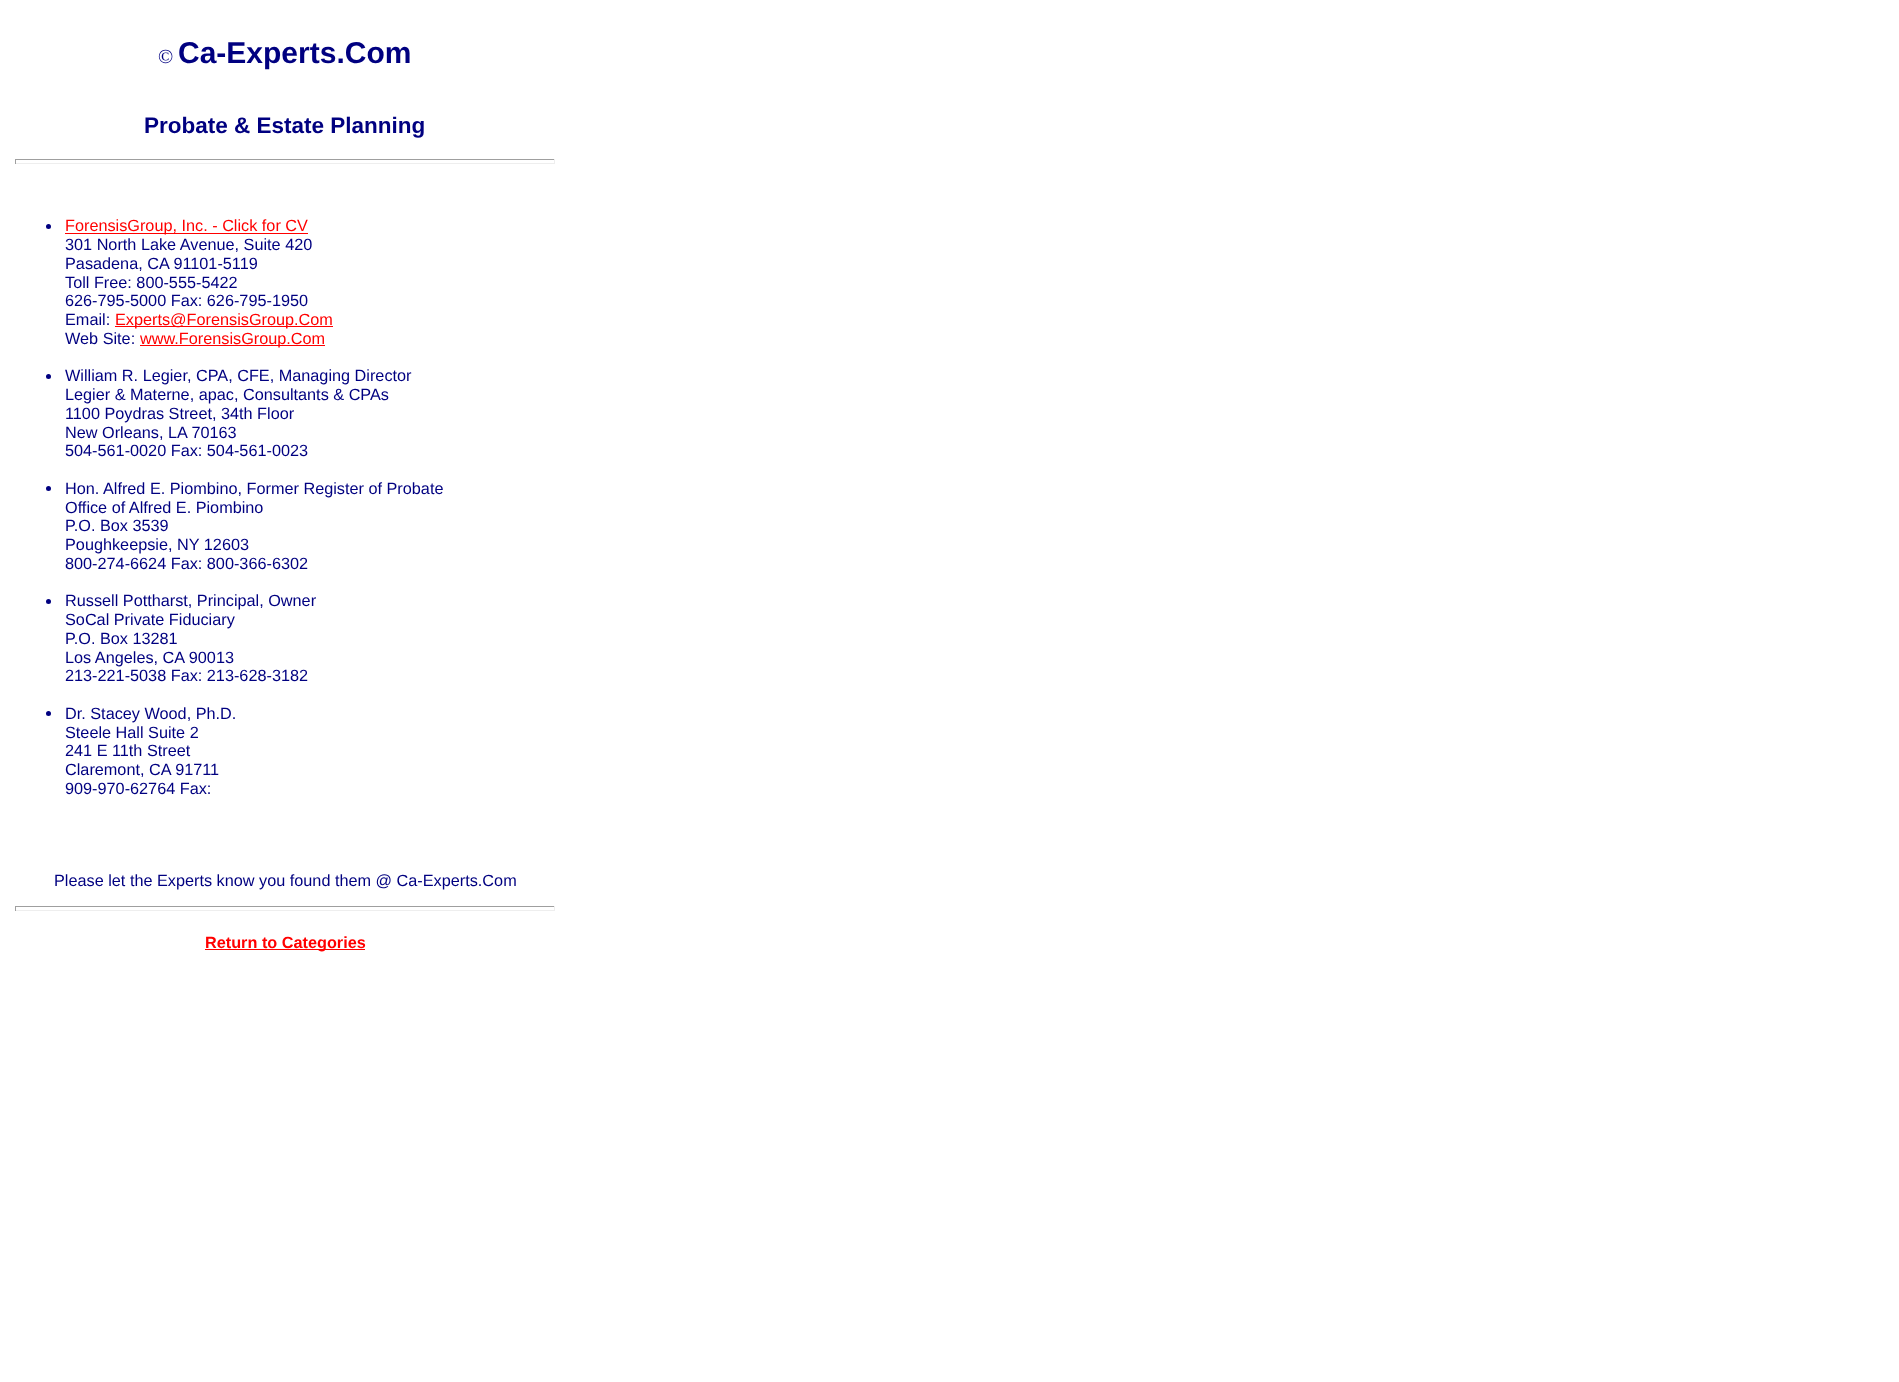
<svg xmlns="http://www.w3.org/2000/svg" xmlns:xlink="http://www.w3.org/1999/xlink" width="1899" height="1382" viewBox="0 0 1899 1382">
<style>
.cls-1{font:20px Liberation Serif;fill:#000080}
.cls-2{font:bold 30px Liberation Sans;fill:#000080}
.cls-3{font:bold 22.5px Liberation Sans;fill:#000080}
.cls-4{font:16.25px Liberation Sans;fill:#ff0000}
.cls-5{font:16.25px Liberation Sans;fill:#000080}
.cls-6{font:bold 16.25px Liberation Sans;fill:#ff0000}
</style>
<rect width="100%" height="100%" fill="#ffffff"/>
<rect fill="#9f9f9f" x="15" y="159" width="540" height="1"/>
<rect fill="#eeeeee" x="554" y="159" width="1" height="5"/>
<rect fill="#eeeeee" x="15" y="163" width="540" height="1"/>
<rect fill="#9f9f9f" x="15" y="159" width="1" height="5"/>
<circle fill="#000080" cx="48.5" cy="226.5" r="2.5"/>
<rect fill="#ff0000" x="65" y="233" width="243" height="1"/>
<rect fill="#ff0000" x="115" y="326" width="218" height="1"/>
<rect fill="#ff0000" x="140" y="345" width="185" height="1"/>
<circle fill="#000080" cx="48.5" cy="376.5" r="2.5"/>
<circle fill="#000080" cx="48.5" cy="488.5" r="2.5"/>
<circle fill="#000080" cx="48.5" cy="601.5" r="2.5"/>
<circle fill="#000080" cx="48.5" cy="713.5" r="2.5"/>
<rect fill="#9f9f9f" x="15" y="906" width="540" height="1"/>
<rect fill="#eeeeee" x="554" y="906" width="1" height="5"/>
<rect fill="#eeeeee" x="15" y="910" width="540" height="1"/>
<rect fill="#9f9f9f" x="15" y="906" width="1" height="5"/>
<rect fill="#ff0000" x="205" y="949" width="160" height="1"/>
<text class="cls-1" x="158" y="63">©</text>
<text class="cls-2" x="178" y="63">Ca-Experts.Com</text>
<text class="cls-3" x="144" y="133">Probate &amp; Estate Planning</text>
<text class="cls-4" x="65" y="231">ForensisGroup, Inc. - Click for CV</text>
<text class="cls-5"><tspan x="65" y="250">301 North Lake Avenue, Suite 420</tspan><tspan x="65" y="269">Pasadena, CA 91101-5119</tspan><tspan x="65" y="288">Toll Free: 800-555-5422</tspan><tspan x="65" y="306">626-795-5000 Fax: 626-795-1950</tspan><tspan x="65" y="325">Email:</tspan></text>
<text class="cls-4" x="115" y="325">Experts@ForensisGroup.Com</text>
<text class="cls-5" x="65" y="344">Web Site:</text>
<text class="cls-4" x="140" y="344">www.ForensisGroup.Com</text>
<text class="cls-5"><tspan x="65" y="381">William R. Legier, CPA, CFE, Managing Director</tspan><tspan x="65" y="400">Legier &amp; Materne, apac, Consultants &amp; CPAs</tspan><tspan x="65" y="419">1100 Poydras Street, 34th Floor</tspan><tspan x="65" y="438">New Orleans, LA 70163</tspan><tspan x="65" y="456">504-561-0020 Fax: 504-561-0023</tspan></text>
<text class="cls-5"><tspan x="65" y="494">Hon. Alfred E. Piombino, Former Register of Probate</tspan><tspan x="65" y="513">Office of Alfred E. Piombino</tspan><tspan x="65" y="531">P.O. Box 3539</tspan><tspan x="65" y="550">Poughkeepsie, NY 12603</tspan><tspan x="65" y="569">800-274-6624 Fax: 800-366-6302</tspan></text>
<text class="cls-5"><tspan x="65" y="606">Russell Pottharst, Principal, Owner</tspan><tspan x="65" y="625">SoCal Private Fiduciary</tspan><tspan x="65" y="644">P.O. Box 13281</tspan><tspan x="65" y="663">Los Angeles, CA 90013</tspan><tspan x="65" y="681">213-221-5038 Fax: 213-628-3182</tspan></text>
<text class="cls-5"><tspan x="65" y="719">Dr. Stacey Wood, Ph.D.</tspan><tspan x="65" y="738">Steele Hall Suite 2</tspan><tspan x="65" y="756">241 E 11th Street</tspan><tspan x="65" y="775">Claremont, CA 91711</tspan><tspan x="65" y="794">909-970-62764 Fax:</tspan></text>
<text class="cls-5" x="54" y="886">Please let the Experts know you found them @ Ca-Experts.Com</text>
<text class="cls-6" x="205" y="948">Return to Categories</text>
</svg>
